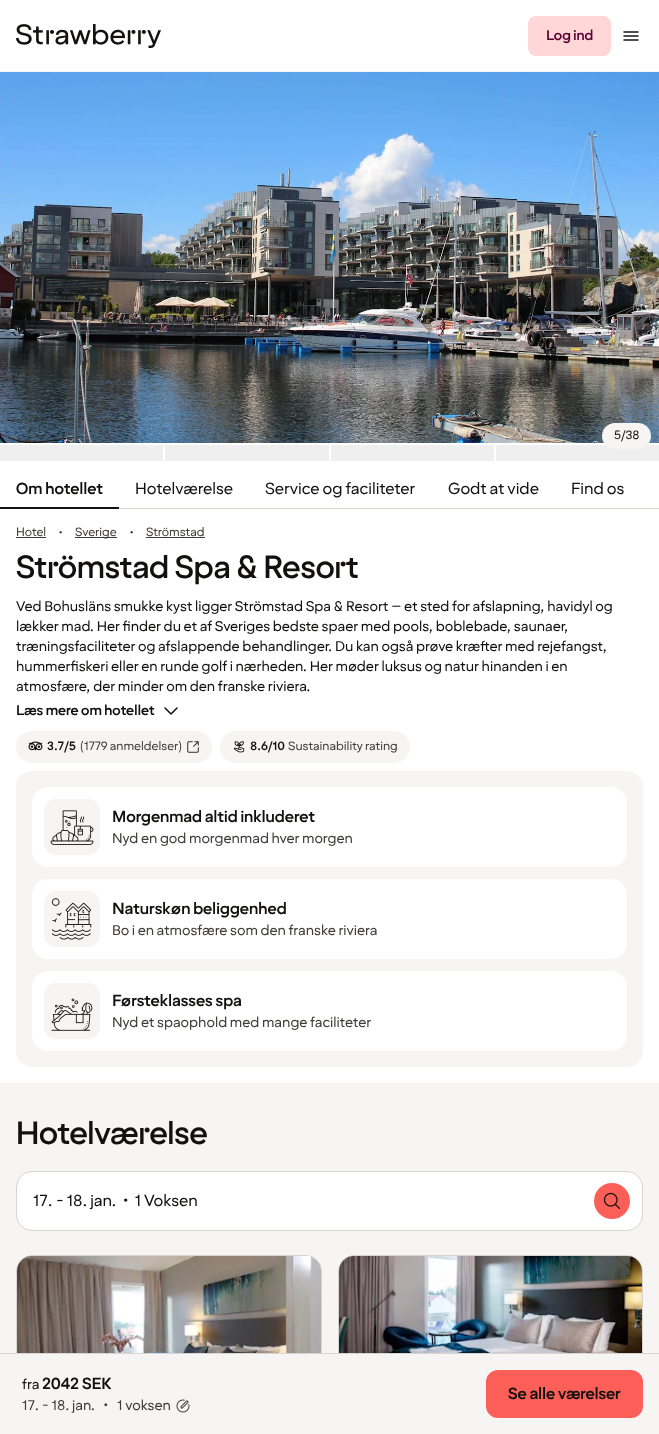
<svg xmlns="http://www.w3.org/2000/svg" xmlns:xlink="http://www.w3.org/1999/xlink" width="659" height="1434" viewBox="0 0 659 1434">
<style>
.cls-1{font:bold 14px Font;fill:#5a0032}
.cls-2{font:12px Font;fill:#121110}
.cls-3{font:bold 16px Font;fill:#121110}
.cls-4{font:16px Font;fill:#121110}
.cls-5{font:12px Font;fill:#403d3b}
.cls-6{font:500 32px Font;fill:#121110}
.cls-7{font:14px Font;fill:#121110}
.cls-8{font:bold 14px Font;fill:#121110}
.cls-9{font:bold 12px Font;fill:#121110}
.cls-10{font:14px Font;fill:#403d3b}
</style>
<rect width="100%" height="100%" fill="#ffffff"/>
<rect fill="#f7f5f3" x="0" y="71" width="659" height="1"/>
<image xlink:href="image0.png" x="16" y="24" width="145" height="24"/>
<rect fill="#ffd7d7" stroke="#ffd7d7" stroke-width="2" x="529" y="17" width="81" height="38" rx="7"/>
<image xlink:href="image1.png" x="623" y="31" width="16" height="10"/>
<image xlink:href="image2.png" x="0" y="72" width="659" height="371"/>
<rect fill="#efefef" x="496" y="445" width="163" height="16"/>
<rect fill="#f7f5f3" x="602" y="423" width="49" height="26" rx="13"/>
<rect fill="#efefef" x="0" y="445" width="163" height="16"/>
<rect fill="#efefef" x="165" y="445" width="164" height="16"/>
<rect fill="#efefef" x="331" y="445" width="163" height="16"/>
<rect fill="#d8d4d0" x="119" y="508" width="540" height="1"/>
<rect fill="#121110" x="0" y="507" width="119" height="2"/>
<rect fill="#403d3b" x="16" y="537" width="30" height="1"/>
<rect fill="#403d3b" x="75" y="537" width="42" height="1"/>
<rect fill="#403d3b" x="146" y="537" width="59" height="1"/>
<image xlink:href="image3.png" x="164" y="707" width="14" height="8"/>
<rect fill="#f7f5f3" x="16" y="731" width="196" height="32" rx="16"/>
<image xlink:href="image4.png" x="28" y="741" width="15" height="10"/>
<image xlink:href="image5.png" x="187" y="741" width="12" height="12"/>
<rect fill="#f7f5f3" x="220" y="731" width="190" height="32" rx="16"/>
<image xlink:href="image6.png" x="233" y="741" width="12" height="12"/>
<rect fill="#f7f5f3" x="0" y="1083" width="659" height="270"/>
<rect fill="none" stroke="#d8d4d0" x="16.5" y="1255.5" width="305" height="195" rx="15.5"/>
<rect fill="none" stroke="#d8d4d0" x="338.5" y="1255.5" width="304" height="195" rx="15.5"/>
<rect fill="#f7f5f3" x="0" y="1354" width="659" height="80"/>
<rect fill="#d8d4d0" x="0" y="1353" width="659" height="1"/>
<image xlink:href="image7.png" x="176" y="1399" width="14" height="14"/>
<rect fill="#fc5e58" stroke="#fc5e58" stroke-width="2" x="487" y="1371" width="155" height="46" rx="11"/>
<rect fill="#f7f5f3" x="16" y="771" width="627" height="296" rx="16"/>
<rect fill="#ffffff" x="32" y="787" width="595" height="80" rx="16"/>
<rect fill="#f7f5f3" x="44" y="799" width="56" height="56" rx="12"/>
<image xlink:href="image8.png" x="50" y="810" width="44" height="35"/>
<rect fill="#ffffff" x="32" y="879" width="595" height="80" rx="16"/>
<rect fill="#f7f5f3" x="44" y="891" width="56" height="56" rx="12"/>
<image xlink:href="image9.png" x="51" y="898" width="41" height="42"/>
<rect fill="#ffffff" x="32" y="971" width="595" height="80" rx="16"/>
<rect fill="#f7f5f3" x="44" y="983" width="56" height="56" rx="12"/>
<image xlink:href="image10.png" x="51" y="998" width="42" height="33"/>
<rect fill="#ffffff" stroke="#d8d4d0" x="16.5" y="1171.5" width="626" height="59" rx="15.5"/>
<circle fill="#fc5e58" cx="612" cy="1201" r="18"/>
<image xlink:href="image11.png" x="603" y="1192" width="18" height="18"/>
<image xlink:href="image12.png" x="17" y="1256" width="304" height="97"/>
<image xlink:href="image13.png" x="339" y="1256" width="303" height="97"/>
<text class="cls-1" x="546" y="40">Log ind</text>
<text class="cls-2" x="614" y="439">5/38</text>
<text class="cls-3" x="16" y="494">Om hotellet</text>
<text class="cls-4" x="135" y="494">Hotelværelse</text>
<text class="cls-4" x="265" y="494">Service og faciliteter</text>
<text class="cls-4" x="448" y="494">Godt at vide</text>
<text class="cls-4" x="571" y="494">Find os</text>
<text class="cls-5" x="16" y="536">Hotel</text>
<text class="cls-4" x="58" y="538">·</text>
<text class="cls-5" x="75" y="536">Sverige</text>
<text class="cls-4" x="129" y="538">·</text>
<text class="cls-5" x="146" y="536">Strömstad</text>
<text class="cls-6" x="16" y="578">Strömstad Spa &amp; Resort</text>
<text class="cls-7"><tspan x="16" y="611">Ved Bohusläns smukke kyst ligger Strömstad Spa &amp; Resort – et sted for afslapning, havidyl og</tspan><tspan x="16" y="631">lækker mad. Her finder du et af Sveriges bedste spaer med pools, boblebade, saunaer,</tspan><tspan x="16" y="651">træningsfaciliteter og afslappende behandlinger. Du kan også prøve kræfter med rejefangst,</tspan><tspan x="16" y="671">hummerfiskeri eller en runde golf i nærheden. Her møder luksus og natur hinanden i en</tspan><tspan x="16" y="691">atmosfære, der minder om den franske riviera.</tspan></text>
<text class="cls-8" x="16" y="715">Læs mere om hotellet</text>
<text class="cls-9" x="47" y="750">3.7/5</text>
<text class="cls-5" x="80" y="750">(1779 anmeldelser</text>
<text class="cls-5" x="178" y="750">)</text>
<text class="cls-9" x="250" y="750">8.6/10</text>
<text class="cls-5" x="288" y="750">Sustainability rating</text>
<text class="cls-7" x="22" y="1389">fra</text>
<text class="cls-3" x="42" y="1389">2042 SEK</text>
<text class="cls-10" x="22" y="1410">17. - 18. jan.</text>
<text class="cls-10" x="103" y="1410">•</text>
<text class="cls-10" x="117" y="1410">1 voksen</text>
<text class="cls-3" x="508" y="1399">Se alle værelser</text>
<text class="cls-3" x="112" y="822">Morgenmad altid inkluderet</text>
<text class="cls-10" x="112" y="843">Nyd en god morgenmad hver morgen</text>
<text class="cls-3" x="112" y="914">Naturskøn beliggenhed</text>
<text class="cls-10" x="112" y="935">Bo i en atmosfære som den franske riviera</text>
<text class="cls-3" x="112" y="1006">Førsteklasses spa</text>
<text class="cls-10" x="112" y="1027">Nyd et spaophold med mange faciliteter</text>
<text class="cls-6" x="16" y="1144">Hotelværelse</text>
<text class="cls-4" xml:space="preserve" x="33" y="1206">17. - 18. jan.  •  1 Voksen</text>
</svg>
